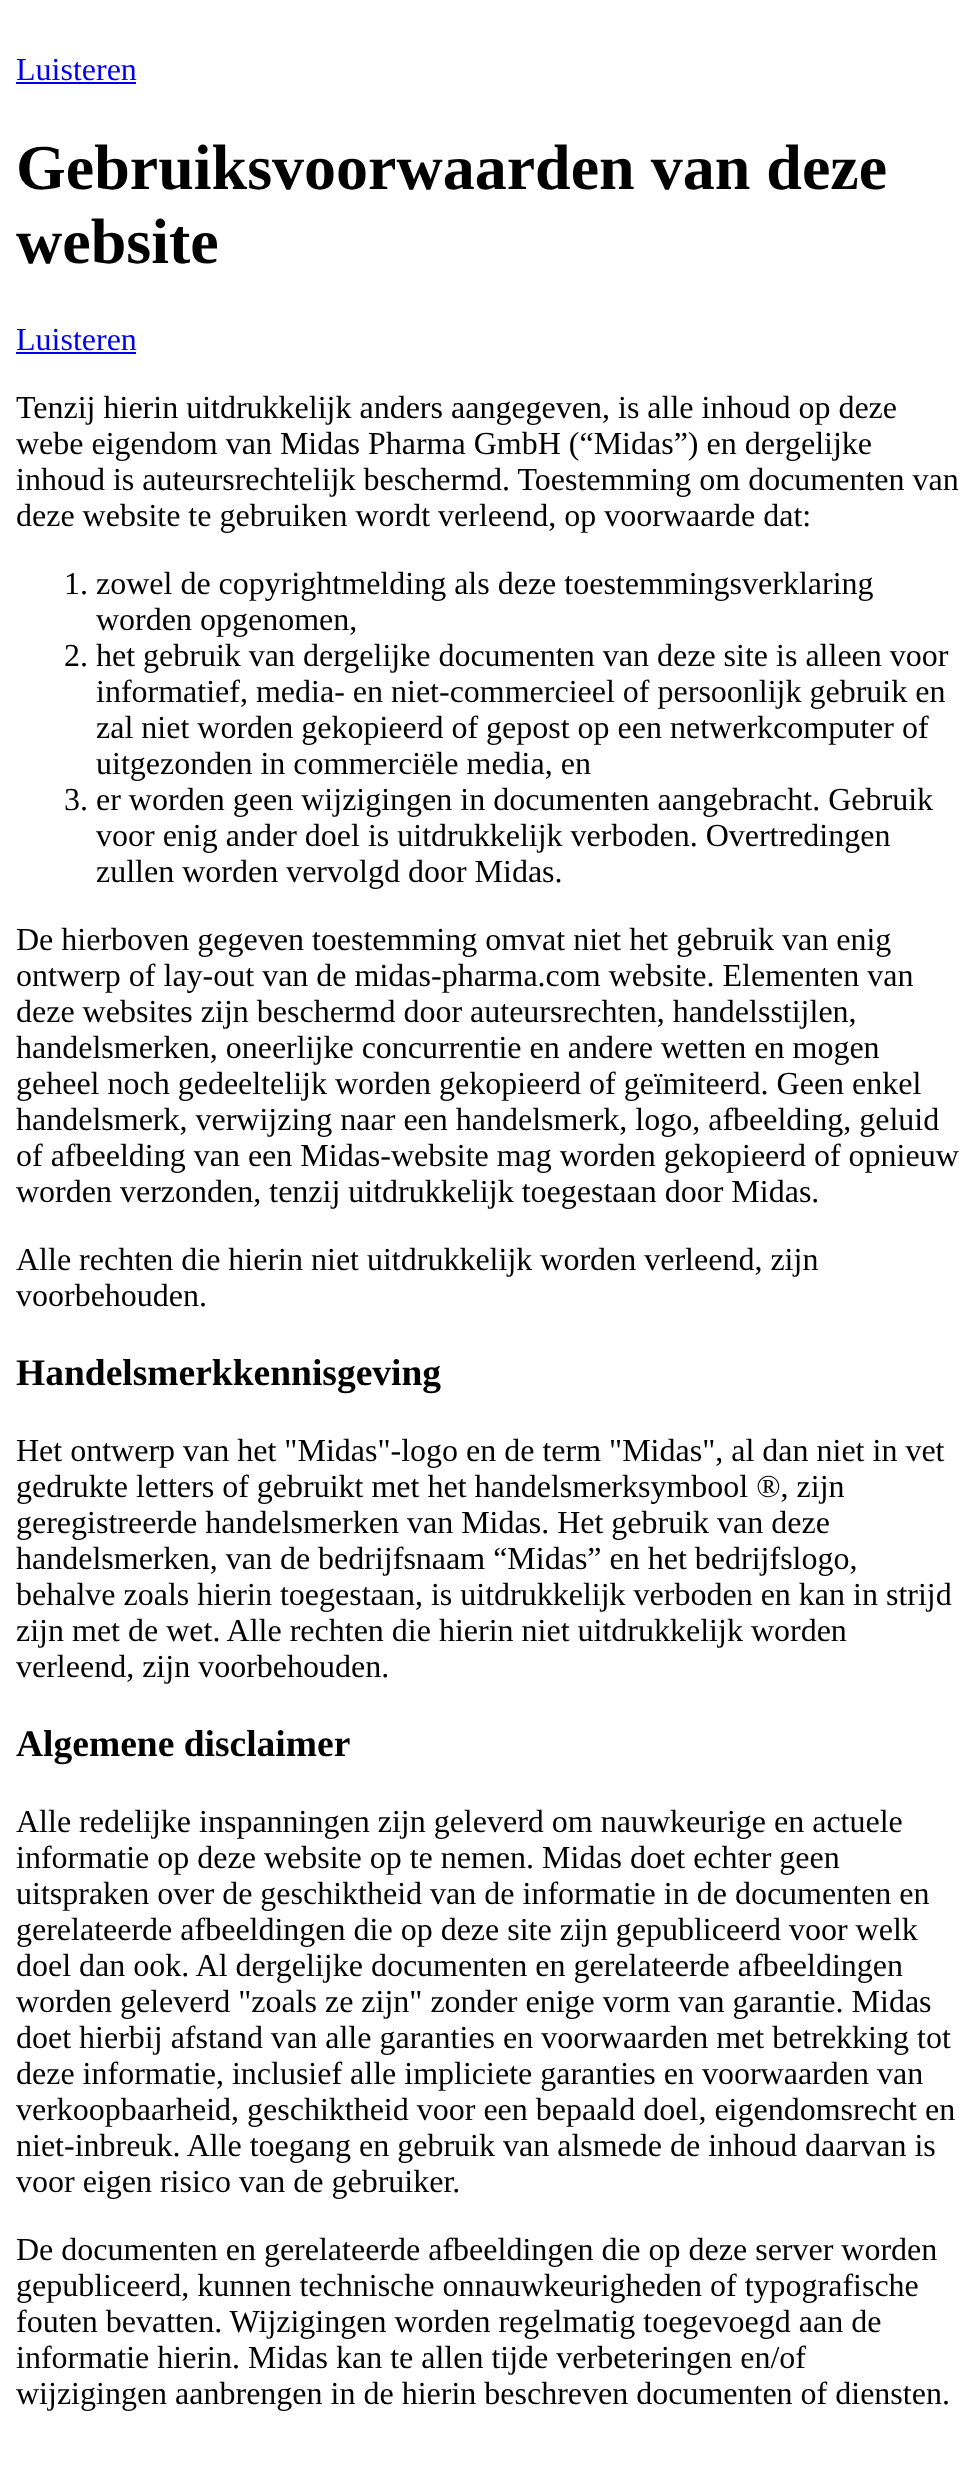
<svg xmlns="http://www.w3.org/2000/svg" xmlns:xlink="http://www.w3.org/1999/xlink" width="977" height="2469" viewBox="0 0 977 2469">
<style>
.cls-1{font:32px Liberation Serif;fill:#0000ee}
.cls-2{font:bold 64px Liberation Serif;fill:#000000}
.cls-3{font:32px Liberation Serif;fill:#000000}
.cls-4{font:bold 37.5px Liberation Serif;fill:#000000}
</style>
<rect width="100%" height="100%" fill="#ffffff"/>
<rect fill="#0000ee" x="16" y="82" width="120" height="2"/>
<rect fill="#0000ee" x="16" y="352" width="120" height="2"/>
<text class="cls-1" x="16" y="80">Luisteren</text>
<text class="cls-2"><tspan x="16" y="189">Gebruiksvoorwaarden van deze</tspan><tspan x="16" y="263">website</tspan></text>
<text class="cls-1" x="16" y="350">Luisteren</text>
<text class="cls-3"><tspan x="16" y="418">Tenzij hierin uitdrukkelijk anders aangegeven, is alle inhoud op deze</tspan><tspan x="16" y="454">webe eigendom van Midas Pharma GmbH (“Midas”) en dergelijke</tspan><tspan x="16" y="490">inhoud is auteursrechtelijk beschermd. Toestemming om documenten van</tspan><tspan x="16" y="526">deze website te gebruiken wordt verleend, op voorwaarde dat:</tspan></text>
<text class="cls-3" x="64" y="594">1. zowel de copyrightmelding als deze toestemmingsverklaring</text>
<text class="cls-3" x="96" y="630">worden opgenomen,</text>
<text class="cls-3" x="64" y="666">2. het gebruik van dergelijke documenten van deze site is alleen voor</text>
<text class="cls-3"><tspan x="96" y="702">informatief, media- en niet-commercieel of persoonlijk gebruik en</tspan><tspan x="96" y="738">zal niet worden gekopieerd of gepost op een netwerkcomputer of</tspan><tspan x="96" y="774">uitgezonden in commerciële media, en</tspan></text>
<text class="cls-3" x="64" y="810">3. er worden geen wijzigingen in documenten aangebracht. Gebruik</text>
<text class="cls-3"><tspan x="96" y="846">voor enig ander doel is uitdrukkelijk verboden. Overtredingen</tspan><tspan x="96" y="882">zullen worden vervolgd door Midas.</tspan></text>
<text class="cls-3"><tspan x="16" y="950">De hierboven gegeven toestemming omvat niet het gebruik van enig</tspan><tspan x="16" y="986">ontwerp of lay-out van de midas-pharma.com website. Elementen van</tspan><tspan x="16" y="1022">deze websites zijn beschermd door auteursrechten, handelsstijlen,</tspan><tspan x="16" y="1058">handelsmerken, oneerlijke concurrentie en andere wetten en mogen</tspan><tspan x="16" y="1094">geheel noch gedeeltelijk worden gekopieerd of geïmiteerd. Geen enkel</tspan><tspan x="16" y="1130">handelsmerk, verwijzing naar een handelsmerk, logo, afbeelding, geluid</tspan><tspan x="16" y="1166">of afbeelding van een Midas-website mag worden gekopieerd of opnieuw</tspan><tspan x="16" y="1202">worden verzonden, tenzij uitdrukkelijk toegestaan door Midas.</tspan></text>
<text class="cls-3"><tspan x="16" y="1270">Alle rechten die hierin niet uitdrukkelijk worden verleend, zijn</tspan><tspan x="16" y="1306">voorbehouden.</tspan></text>
<text class="cls-4" x="16" y="1385">Handelsmerkkennisgeving</text>
<text class="cls-3"><tspan x="16" y="1461">Het ontwerp van het "Midas"-logo en de term "Midas", al dan niet in vet</tspan><tspan x="16" y="1497">gedrukte letters of gebruikt met het handelsmerksymbool ®, zijn</tspan><tspan x="16" y="1533">geregistreerde handelsmerken van Midas. Het gebruik van deze</tspan><tspan x="16" y="1569">handelsmerken, van de bedrijfsnaam “Midas” en het bedrijfslogo,</tspan><tspan x="16" y="1605">behalve zoals hierin toegestaan, is uitdrukkelijk verboden en kan in strijd</tspan><tspan x="16" y="1641">zijn met de wet. Alle rechten die hierin niet uitdrukkelijk worden</tspan><tspan x="16" y="1677">verleend, zijn voorbehouden.</tspan></text>
<text class="cls-4" x="16" y="1756">Algemene disclaimer</text>
<text class="cls-3"><tspan x="16" y="1832">Alle redelijke inspanningen zijn geleverd om nauwkeurige en actuele</tspan><tspan x="16" y="1868">informatie op deze website op te nemen. Midas doet echter geen</tspan><tspan x="16" y="1904">uitspraken over de geschiktheid van de informatie in de documenten en</tspan><tspan x="16" y="1940">gerelateerde afbeeldingen die op deze site zijn gepubliceerd voor welk</tspan><tspan x="16" y="1976">doel dan ook. Al dergelijke documenten en gerelateerde afbeeldingen</tspan><tspan x="16" y="2012">worden geleverd "zoals ze zijn" zonder enige vorm van garantie. Midas</tspan><tspan x="16" y="2048">doet hierbij afstand van alle garanties en voorwaarden met betrekking tot</tspan><tspan x="16" y="2084">deze informatie, inclusief alle impliciete garanties en voorwaarden van</tspan><tspan x="16" y="2120">verkoopbaarheid, geschiktheid voor een bepaald doel, eigendomsrecht en</tspan><tspan x="16" y="2156">niet-inbreuk. Alle toegang en gebruik van alsmede de inhoud daarvan is</tspan><tspan x="16" y="2192">voor eigen risico van de gebruiker.</tspan></text>
<text class="cls-3"><tspan x="16" y="2260">De documenten en gerelateerde afbeeldingen die op deze server worden</tspan><tspan x="16" y="2296">gepubliceerd, kunnen technische onnauwkeurigheden of typografische</tspan><tspan x="16" y="2332">fouten bevatten. Wijzigingen worden regelmatig toegevoegd aan de</tspan><tspan x="16" y="2368">informatie hierin. Midas kan te allen tijde verbeteringen en/of</tspan><tspan x="16" y="2404">wijzigingen aanbrengen in de hierin beschreven documenten of diensten.</tspan></text>
</svg>
